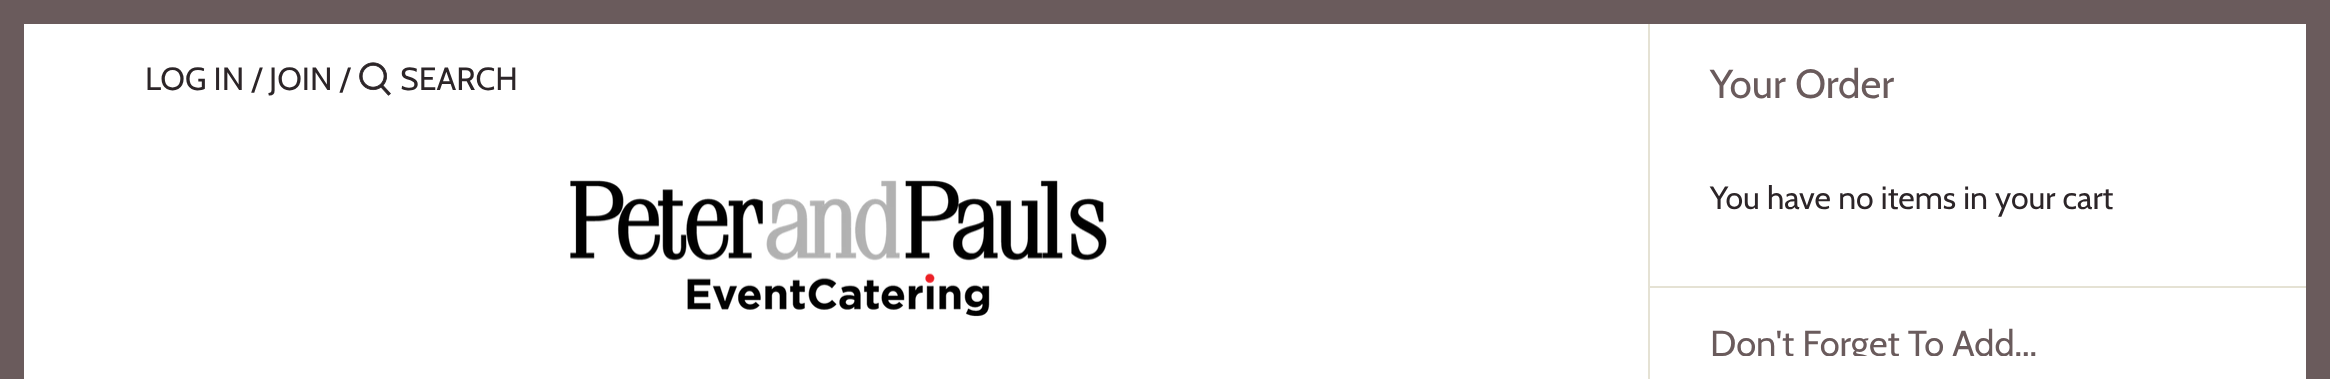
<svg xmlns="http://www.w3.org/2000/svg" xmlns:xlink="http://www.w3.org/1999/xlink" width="2330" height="379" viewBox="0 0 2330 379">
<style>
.cls-1{font:32px Cabin;fill:#2c2528}
.cls-2{font:40.5px Cabin;fill:#6a5b5c}
.cls-3{font:36.25px Cabin;fill:#6a5b5c}
</style>
<defs>
<clipPath id="clip1"><rect x="1650" y="24" width="656" height="332"/></clipPath>
</defs>
<rect width="100%" height="100%" fill="#ffffff"/>
<rect fill="#6a5b5c" x="1674" y="0" width="632" height="24"/>
<rect fill="none" stroke="#6a5b5c" stroke-width="24" x="12" y="12" width="1650" height="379"/>
<image xlink:href="image0.png" x="359" y="62" width="32" height="34"/>
<image xlink:href="image1.png" x="570" y="180" width="537" height="137"/>
<rect fill="#ffffff" x="1650" y="24" width="24" height="355"/>
<rect fill="#e5e2d4" x="1648" y="24" width="2" height="355"/>
<rect fill="#e5e2d4" x="1650" y="286" width="656" height="2"/>
<rect fill="#6a5b5c" x="2306" y="0" width="24" height="379"/>
<text class="cls-1" x="145" y="90">LOG IN / JOIN /</text>
<text class="cls-1" x="400" y="90">SEARCH</text>
<text class="cls-2" x="1710" y="98">Your Order</text>
<text class="cls-1" x="1710" y="209">You have no items in your cart</text>
<g clip-path="url(#clip1)">
<text class="cls-3" x="1710" y="356">Don't Forget To Add...</text>
</g>
</svg>
